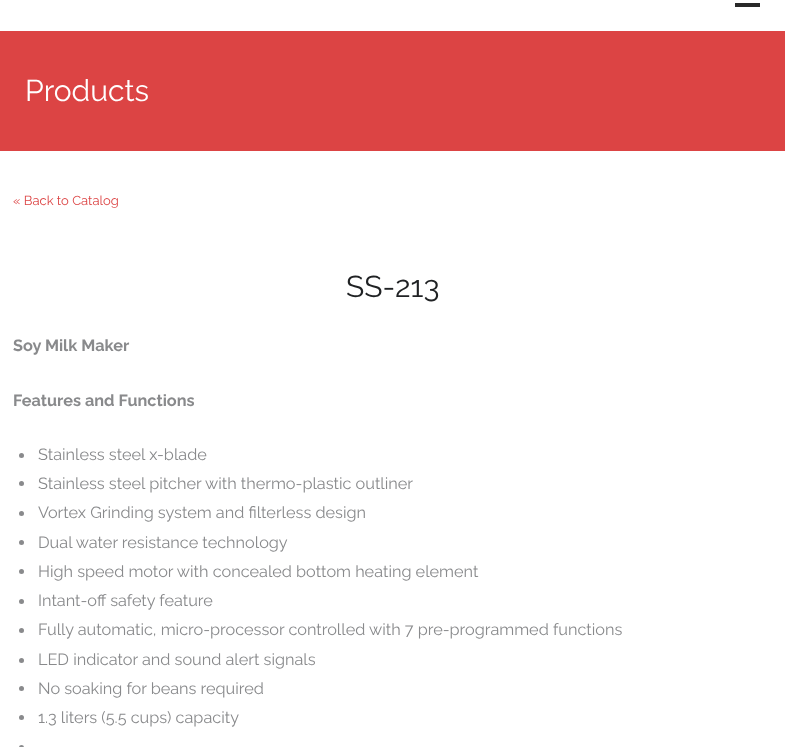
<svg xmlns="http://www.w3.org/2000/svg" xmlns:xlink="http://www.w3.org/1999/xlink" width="785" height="747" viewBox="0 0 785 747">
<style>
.cls-1{font:30px Raleway;fill:#ffffff}
.cls-2{font:13px Raleway;fill:#dc4444}
.cls-3{font:30px Raleway;fill:#202224}
.cls-4{font:bold 16.25px Raleway;fill:#898a8c}
.cls-5{font:16.25px Raleway;fill:#898a8c}
</style>
<rect width="100%" height="100%" fill="#ffffff"/>
<rect fill="#292929" x="735" y="3" width="25" height="4"/>
<rect fill="#dc4444" x="0" y="31" width="785" height="120"/>
<circle fill="#898a8c" cx="21.5" cy="455.5" r="2.5"/>
<circle fill="#898a8c" cx="21.5" cy="483.5" r="2.5"/>
<circle fill="#898a8c" cx="21.5" cy="513.5" r="2.5"/>
<circle fill="#898a8c" cx="21.5" cy="542.5" r="2.5"/>
<circle fill="#898a8c" cx="21.5" cy="571.5" r="2.5"/>
<circle fill="#898a8c" cx="21.5" cy="601.5" r="2.5"/>
<circle fill="#898a8c" cx="21.5" cy="630.5" r="2.5"/>
<circle fill="#898a8c" cx="21.5" cy="660.5" r="2.5"/>
<circle fill="#898a8c" cx="21.5" cy="688.5" r="2.5"/>
<circle fill="#898a8c" cx="21.5" cy="717.5" r="2.5"/>
<circle fill="#898a8c" cx="21.5" cy="747.5" r="2.5"/>
<text class="cls-1" x="25" y="101">Products</text>
<text class="cls-2" x="13" y="205">« Back to Catalog</text>
<text class="cls-3" x="346" y="297">SS-213</text>
<text class="cls-4" x="13" y="351">Soy Milk Maker</text>
<text class="cls-4" x="13" y="406">Features and Functions</text>
<text class="cls-5"><tspan x="38" y="460">Stainless steel x-blade</tspan><tspan x="38" y="489">Stainless steel pitcher with thermo-plastic outliner</tspan><tspan x="38" y="518">Vortex Grinding system and filterless design</tspan><tspan x="38" y="548">Dual water resistance technology</tspan><tspan x="38" y="577">High speed motor with concealed bottom heating element</tspan><tspan x="38" y="606">Intant-off safety feature</tspan><tspan x="38" y="635">Fully automatic, micro-processor controlled with 7 pre-programmed functions</tspan><tspan x="38" y="665">LED indicator and sound alert signals</tspan><tspan x="38" y="694">No soaking for beans required</tspan><tspan x="38" y="723">1.3 liters (5.5 cups) capacity</tspan></text>
</svg>
